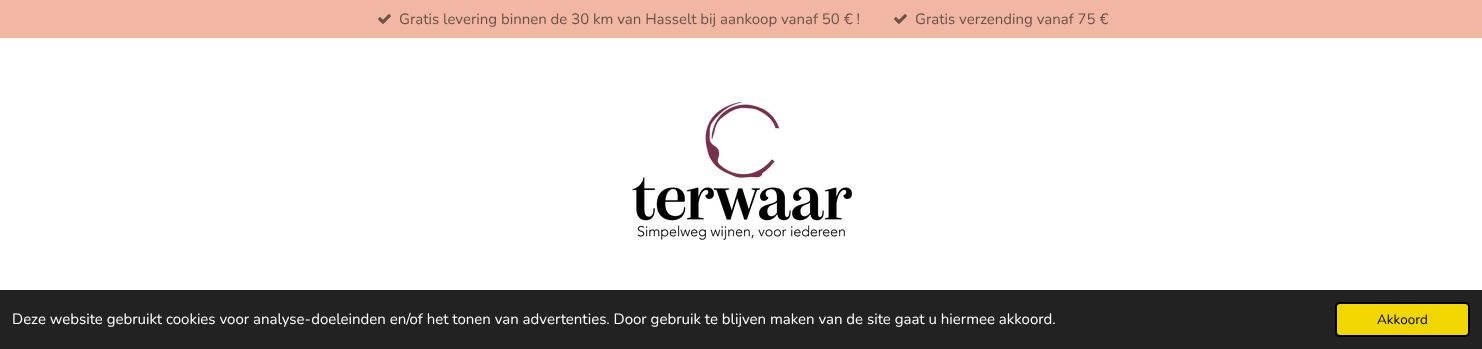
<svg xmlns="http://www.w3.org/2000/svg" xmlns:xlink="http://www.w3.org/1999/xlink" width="1482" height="349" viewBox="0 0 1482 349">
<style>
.cls-1{font:15px Nunito;fill:#6d5249}
.cls-2{font:15px Nunito;fill:#ffffff}
.cls-3{font:13.5px Nunito;fill:#000000}
</style>
<rect width="100%" height="100%" fill="#ffffff"/>
<rect fill="#f2b7a3" x="0" y="0" width="1482" height="38"/>
<image xlink:href="image0.png" x="378" y="14" width="13" height="10"/>
<image xlink:href="image0.png" x="894" y="14" width="13" height="10"/>
<image xlink:href="image1.png" x="632" y="101" width="220" height="139"/>
<rect fill="#222222" x="0" y="290" width="1482" height="59"/>
<rect fill="#f1d600" stroke="#000000" stroke-width="2" x="1336" y="303" width="133" height="33" rx="4"/>
<text class="cls-1" x="399" y="24">Gratis levering binnen de 30 km van Hasselt bij aankoop vanaf 50 € !</text>
<text class="cls-1" x="915" y="24">Gratis verzending vanaf 75 €</text>
<text class="cls-2" x="12" y="324">Deze website gebruikt cookies voor analyse-doeleinden en/of het tonen van advertenties. Door gebruik te blijven maken van de site gaat u hiermee akkoord.</text>
<text class="cls-3" x="1377" y="324">Akkoord</text>
</svg>
